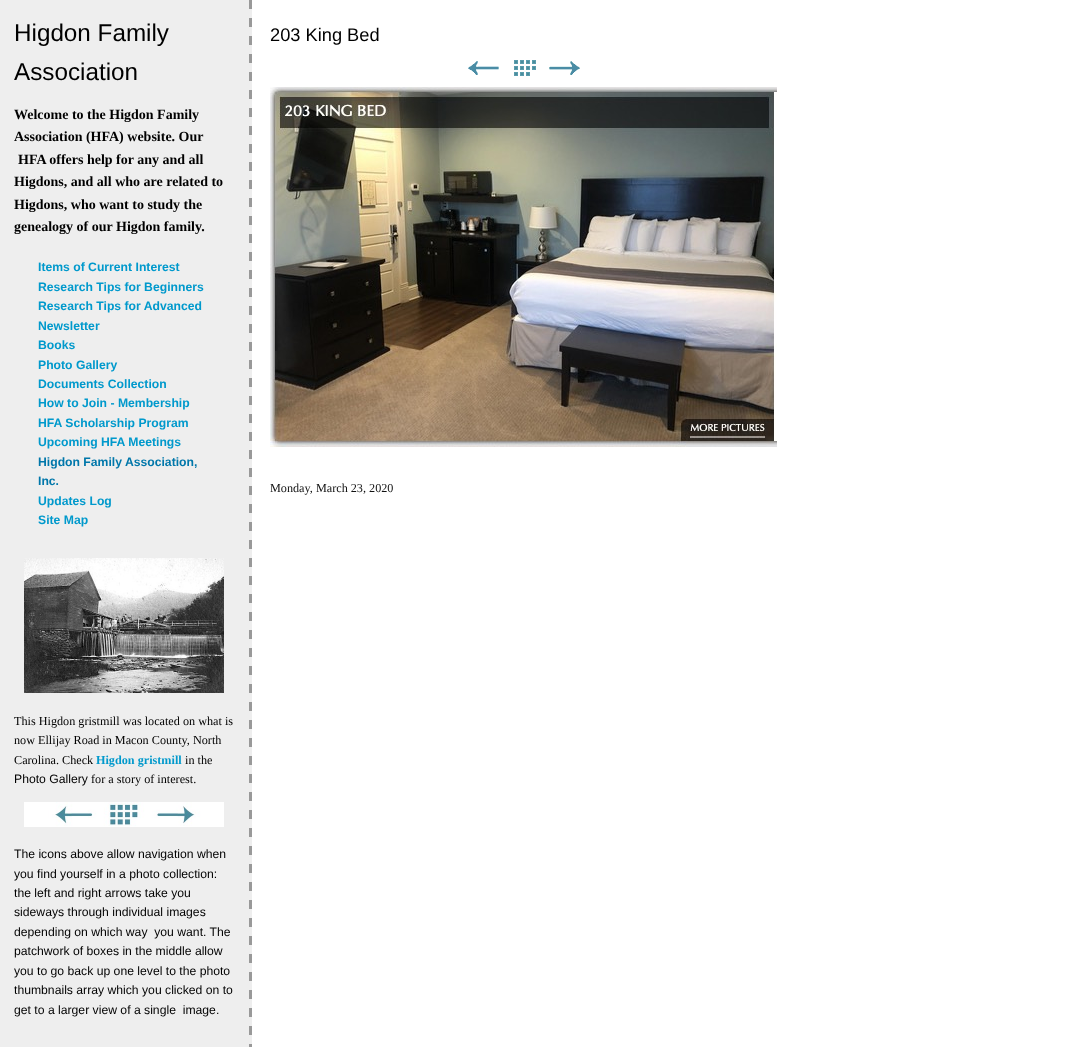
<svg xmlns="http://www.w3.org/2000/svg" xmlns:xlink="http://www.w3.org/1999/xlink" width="1080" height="1047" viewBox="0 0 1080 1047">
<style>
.cls-1{font:24.25px Liberation Sans;fill:#000000}
.cls-2{font:bold 14px Liberation Serif;fill:#000000}
.cls-3{font:bold 12.2px Liberation Sans;fill:#0099cc}
.cls-4{font:bold 12.2px Liberation Sans;fill:#0077aa}
.cls-5{font:18.25px Liberation Sans;fill:#000000}
.cls-6{font:12.2px Liberation Serif;fill:#111111}
.cls-7{font:12.2px Liberation Serif;fill:#000000}
.cls-8{font:bold 12.2px Liberation Serif;fill:#0099cc}
.cls-9{font:12.2px Liberation Sans;fill:#000000}
</style>
<rect width="100%" height="100%" fill="#ffffff"/>
<image xlink:href="image0.png" x="0" y="0" width="252" height="1047"/>
<image xlink:href="image1.png" x="468" y="61" width="31" height="14"/>
<image xlink:href="image2.png" x="514" y="60" width="22" height="16"/>
<image xlink:href="image3.png" x="549" y="61" width="31" height="14"/>
<image xlink:href="image4.png" x="270" y="87" width="507" height="360"/>
<image xlink:href="image5.png" x="24" y="558" width="200" height="135"/>
<image xlink:href="image6.png" x="24" y="802" width="200" height="25"/>
<text class="cls-1"><tspan x="14" y="41">Higdon Family</tspan><tspan x="14" y="80">Association</tspan></text>
<text class="cls-2"><tspan x="14" y="119">Welcome to the Higdon Family</tspan><tspan x="14" y="141">Association (HFA) website. Our</tspan></text>
<text class="cls-2" x="18" y="164">HFA offers help for any and all</text>
<text class="cls-2"><tspan x="14" y="186">Higdons, and all who are related to</tspan><tspan x="14" y="209">Higdons, who want to study the</tspan><tspan x="14" y="231">genealogy of our Higdon family.</tspan></text>
<text class="cls-3"><tspan x="38" y="271">Items of Current Interest</tspan><tspan x="38" y="291">Research Tips for Beginners</tspan><tspan x="38" y="310">Research Tips for Advanced</tspan><tspan x="38" y="330">Newsletter</tspan><tspan x="38" y="349">Books</tspan><tspan x="38" y="369">Photo Gallery</tspan><tspan x="38" y="388">Documents Collection</tspan><tspan x="38" y="407">How to Join - Membership</tspan><tspan x="38" y="427">HFA Scholarship Program</tspan><tspan x="38" y="446">Upcoming HFA Meetings</tspan></text>
<text class="cls-4"><tspan x="38" y="466">Higdon Family Association,</tspan><tspan x="38" y="485">Inc.</tspan></text>
<text class="cls-3"><tspan x="38" y="505">Updates Log</tspan><tspan x="38" y="524">Site Map</tspan></text>
<text class="cls-5" x="270" y="41">203 King Bed</text>
<text class="cls-6" x="270" y="492">Monday, March 23, 2020</text>
<text class="cls-7"><tspan x="14" y="725">This Higdon gristmill was located on what is</tspan><tspan x="14" y="744">now Ellijay Road in Macon County, North</tspan><tspan x="14" y="764">Carolina. Check</tspan></text>
<text class="cls-8" x="96" y="764">Higdon gristmill</text>
<text class="cls-7" x="185" y="764">in the</text>
<text class="cls-9" x="14" y="783">Photo Gallery</text>
<text class="cls-7" x="91" y="783">for a story of interest.</text>
<text class="cls-9" xml:space="preserve"><tspan x="14" y="858">The icons above allow navigation when</tspan><tspan x="14" y="878">you find yourself in a photo collection:</tspan><tspan x="14" y="897">the left and right arrows take you</tspan><tspan x="14" y="916">sideways through individual images</tspan><tspan x="14" y="936">depending on which way  you want. The</tspan><tspan x="14" y="955">patchwork of boxes in the middle allow</tspan><tspan x="14" y="975">you to go back up one level to the photo</tspan><tspan x="14" y="994">thumbnails array which you clicked on to</tspan><tspan x="14" y="1014">get to a larger view of a single  image.</tspan></text>
</svg>
